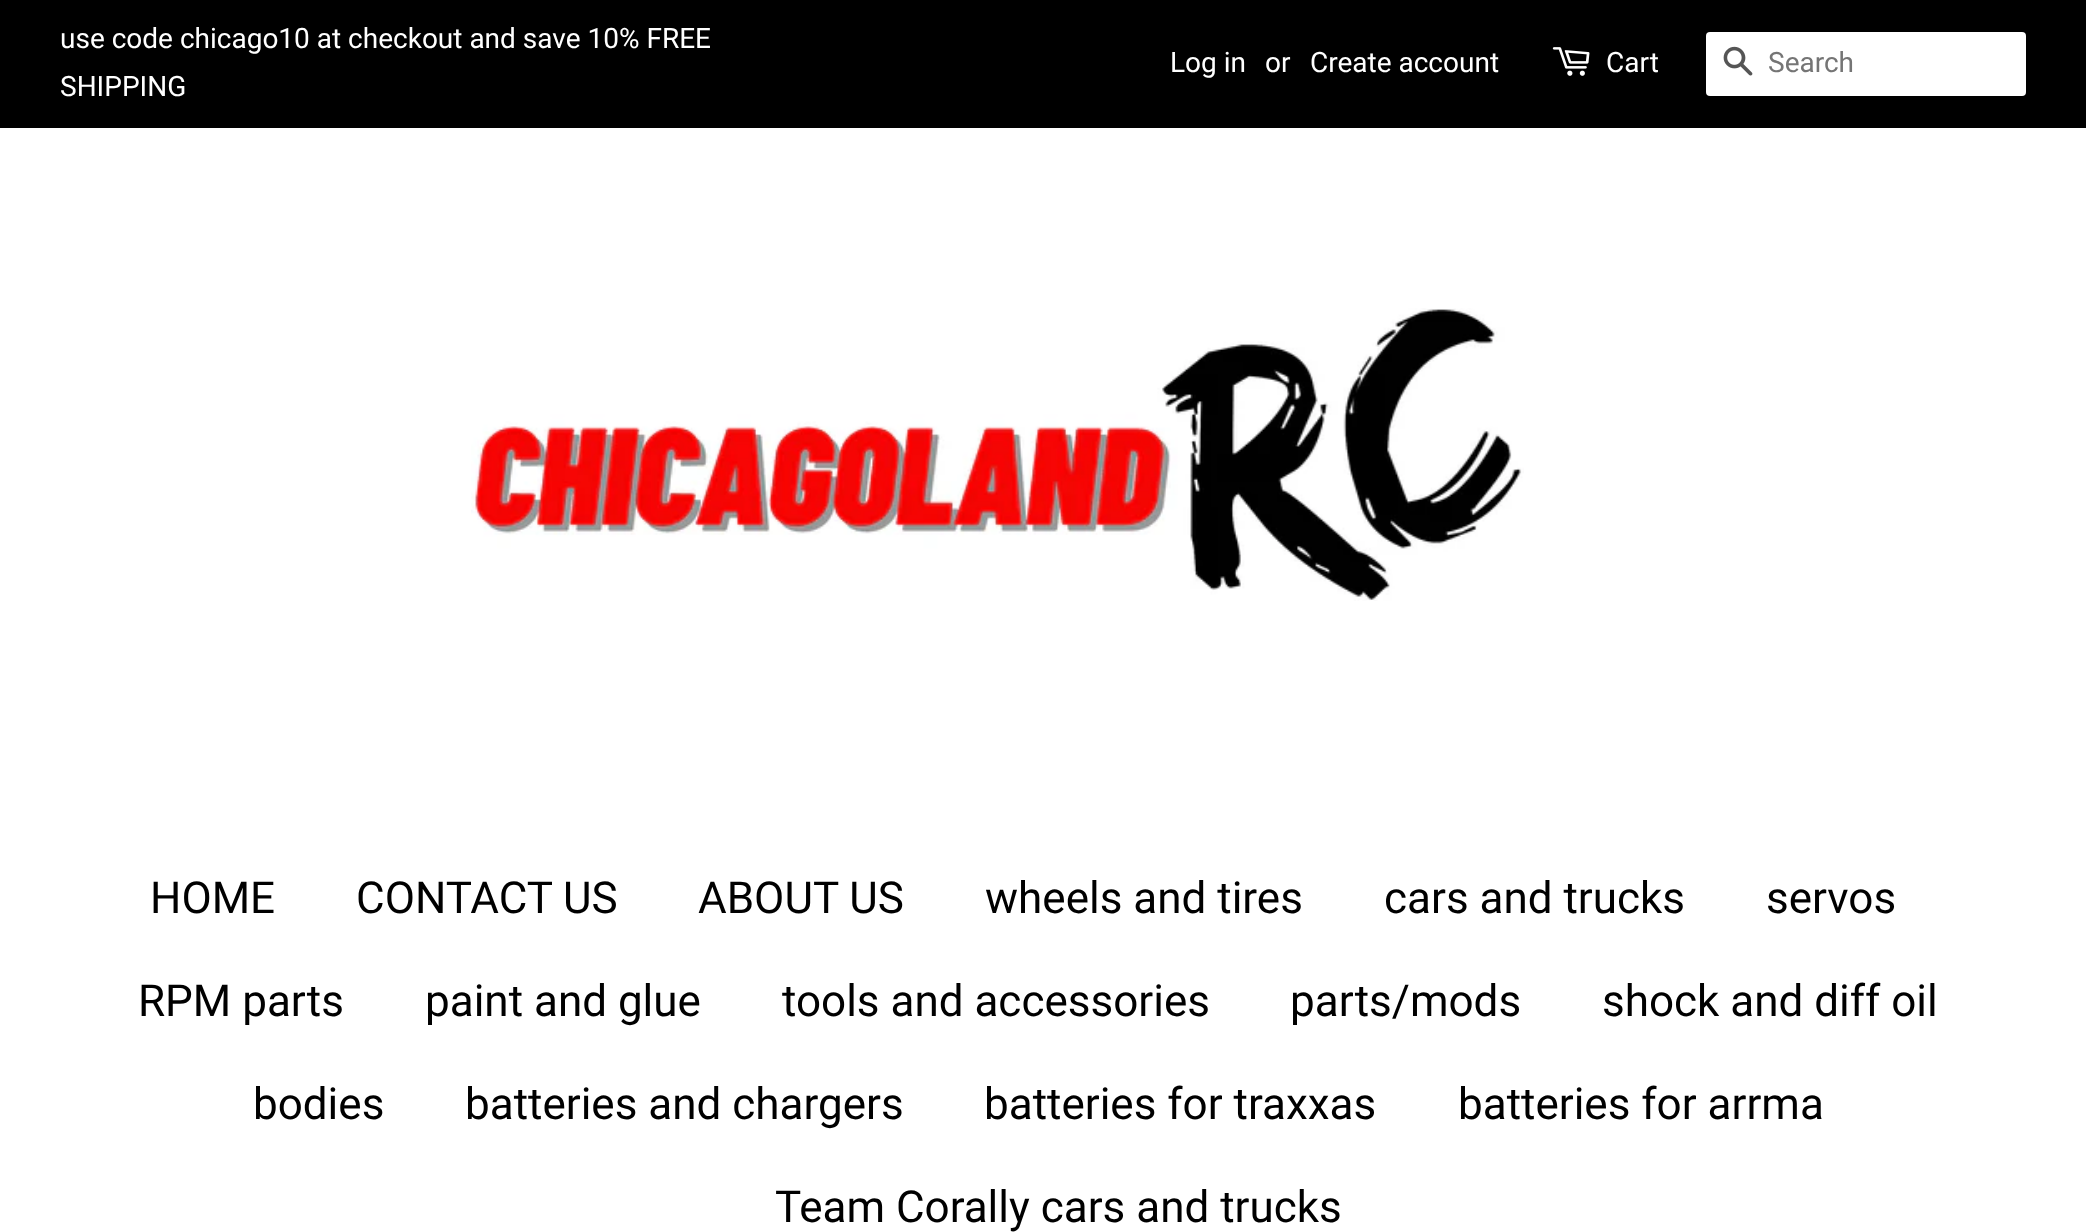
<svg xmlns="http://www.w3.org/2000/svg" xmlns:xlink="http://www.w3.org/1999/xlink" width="2086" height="1232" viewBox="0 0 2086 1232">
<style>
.cls-1{font:28px Roboto;fill:#ffffff}
.cls-2{font:28px Roboto;fill:#757575}
.cls-3{font:44px Roboto;fill:#000000}
</style>
<rect width="100%" height="100%" fill="#ffffff"/>
<rect fill="#000000" x="0" y="0" width="2086" height="128"/>
<image xlink:href="image0.png" x="1552" y="47" width="38" height="29"/>
<rect fill="#ffffff" x="1706" y="32" width="320" height="64" rx="4"/>
<image xlink:href="image1.png" x="1723" y="46" width="30" height="30"/>
<image xlink:href="image2.png" x="471" y="308" width="1053" height="293"/>
<text class="cls-1"><tspan x="60" y="48">use code chicago10 at checkout and save 10% FREE</tspan><tspan x="60" y="96">SHIPPING</tspan></text>
<text class="cls-1" x="1170" y="72">Log in</text>
<text class="cls-1" x="1265" y="72">or</text>
<text class="cls-1" x="1310" y="72">Create account</text>
<text class="cls-1" x="1606" y="72">Cart</text>
<text class="cls-2" x="1768" y="72">Search</text>
<text class="cls-3" x="150" y="913">HOME</text>
<text class="cls-3" x="356" y="913">CONTACT US</text>
<text class="cls-3" x="698" y="913">ABOUT US</text>
<text class="cls-3" x="985" y="913">wheels and tires</text>
<text class="cls-3" x="1384" y="913">cars and trucks</text>
<text class="cls-3" x="1766" y="913">servos</text>
<text class="cls-3" x="138" y="1016">RPM parts</text>
<text class="cls-3" x="425" y="1016">paint and glue</text>
<text class="cls-3" x="782" y="1016">tools and accessories</text>
<text class="cls-3" x="1290" y="1016">parts/mods</text>
<text class="cls-3" x="1602" y="1016">shock and diff oil</text>
<text class="cls-3" x="253" y="1119">bodies</text>
<text class="cls-3" x="465" y="1119">batteries and chargers</text>
<text class="cls-3" x="984" y="1119">batteries for traxxas</text>
<text class="cls-3" x="1458" y="1119">batteries for arrma</text>
<text class="cls-3" x="775" y="1222">Team Corally cars and trucks</text>
</svg>
